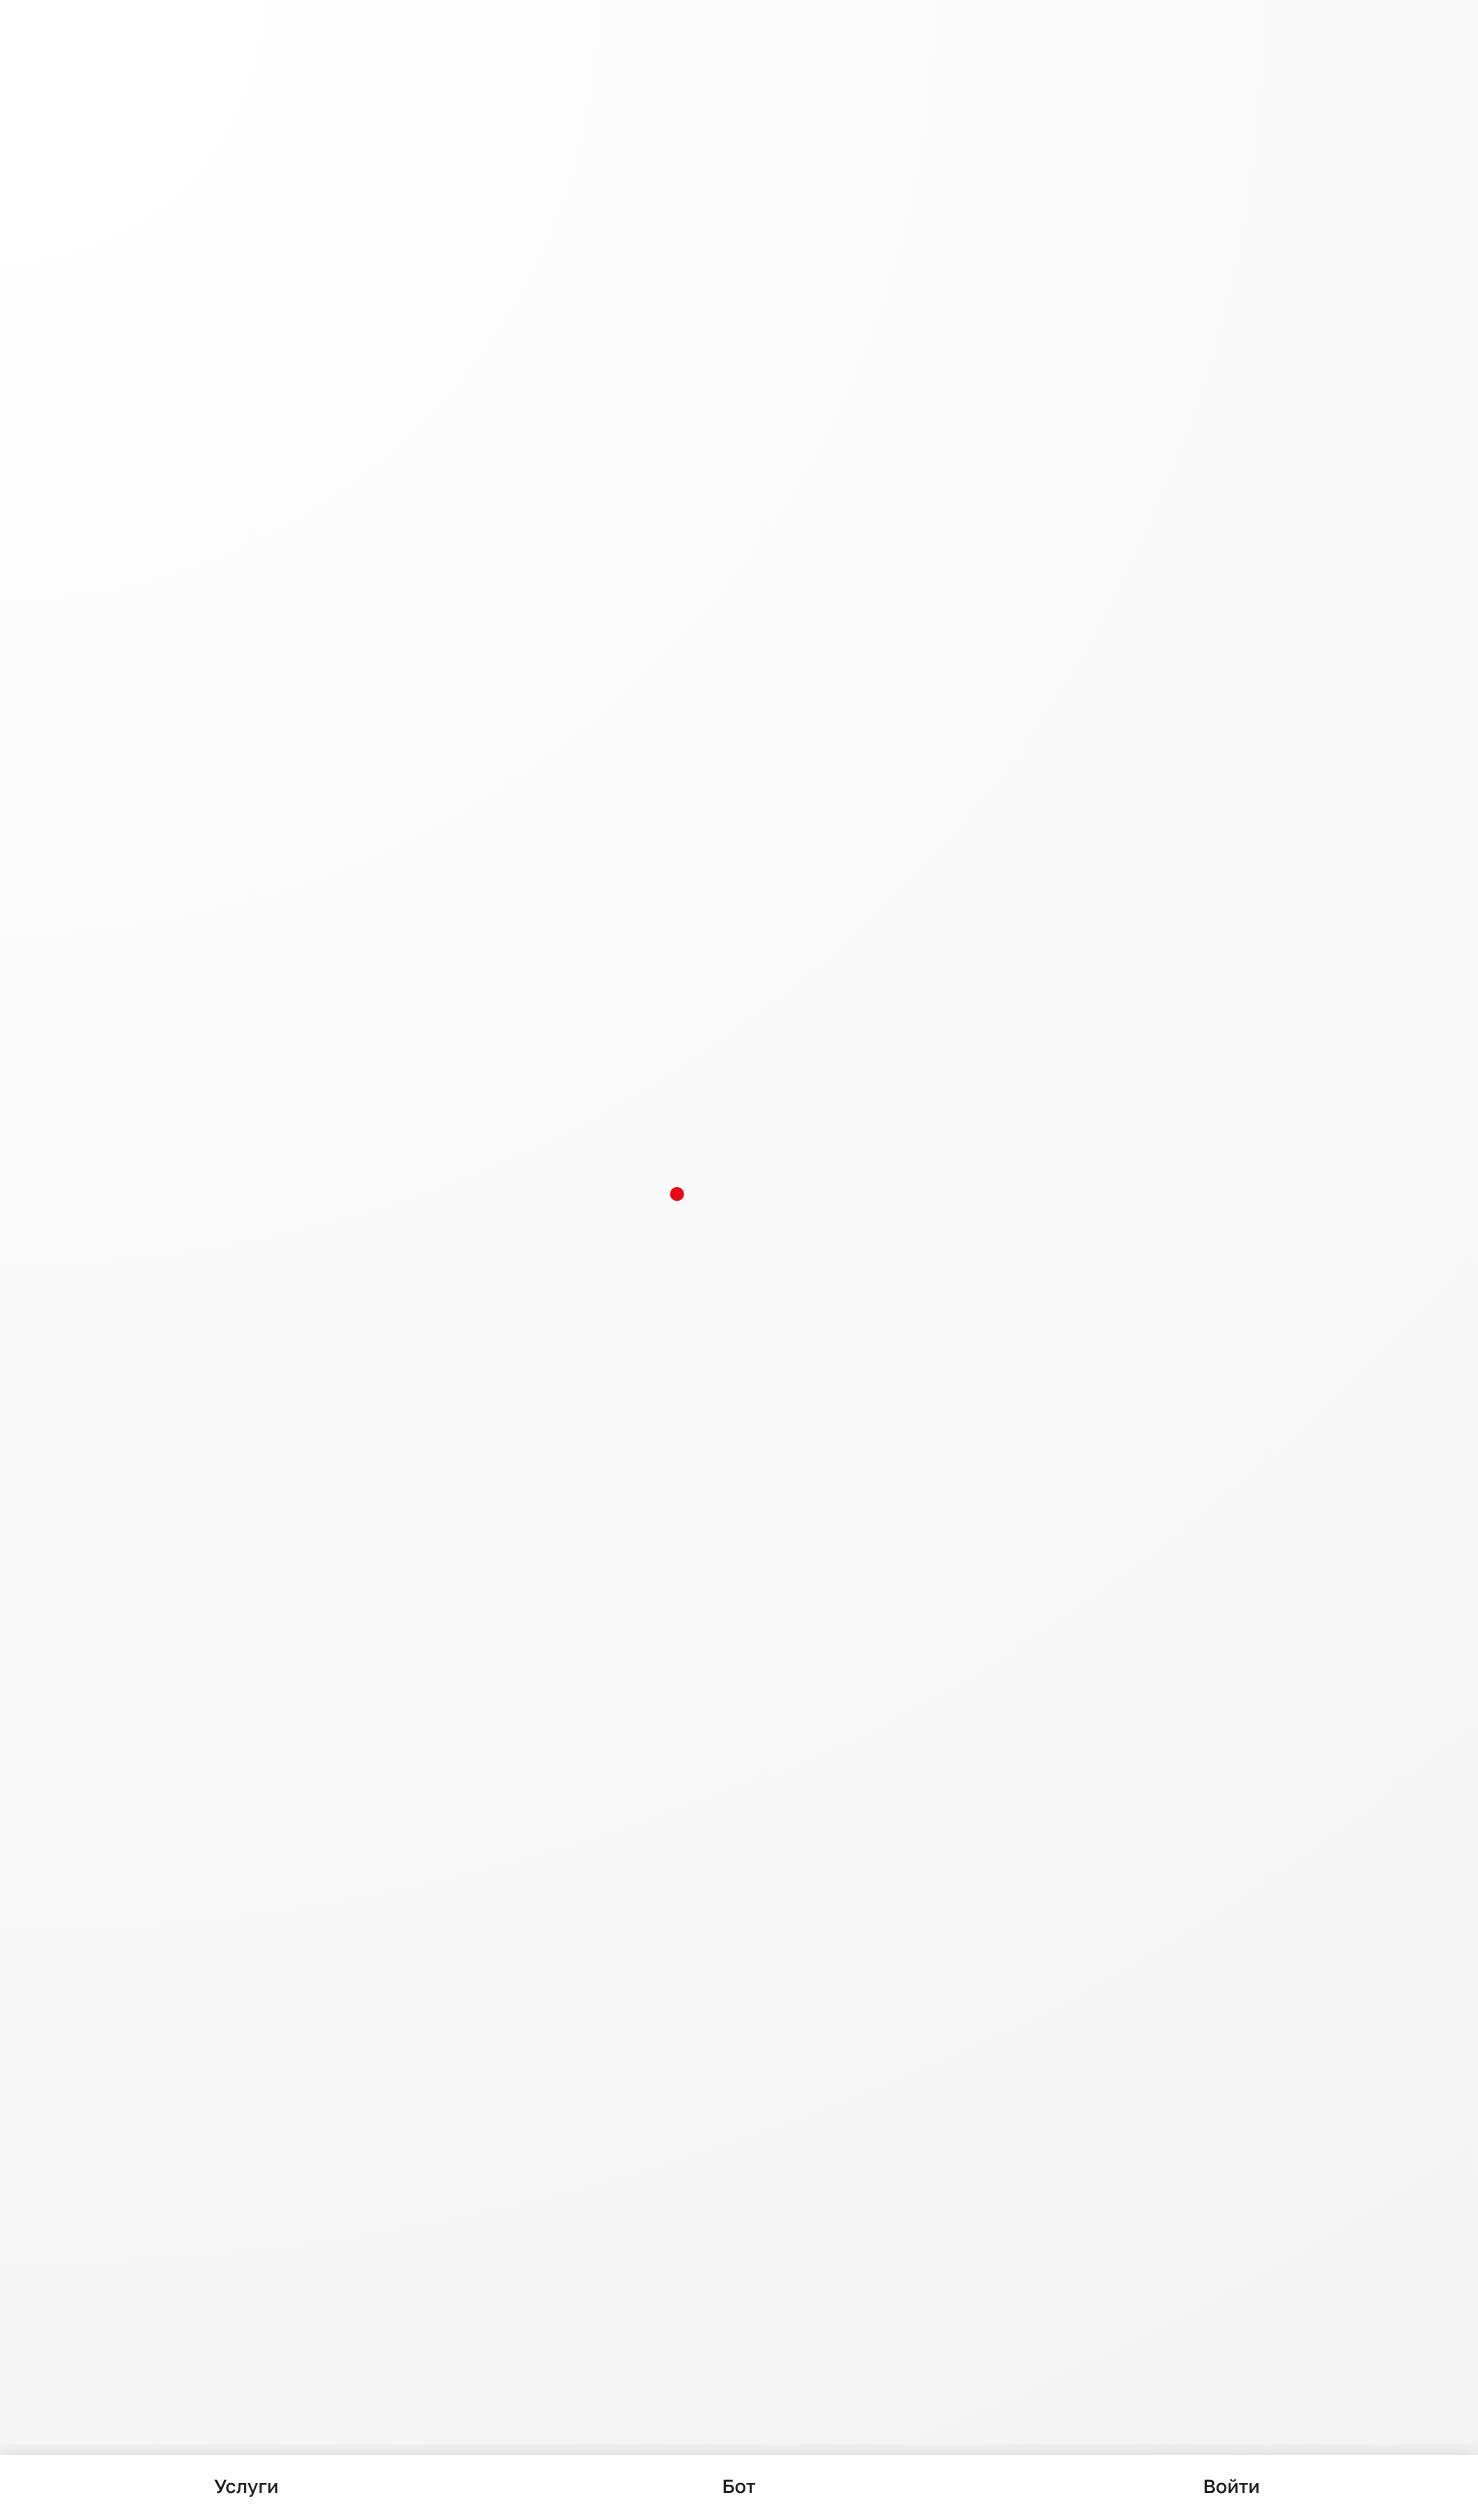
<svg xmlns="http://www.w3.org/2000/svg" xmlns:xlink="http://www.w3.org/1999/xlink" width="1478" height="2510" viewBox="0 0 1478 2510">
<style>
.cls-1{font:500 19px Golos;fill:#1a1a1a}
</style>
<defs>
<radialGradient id="g1" gradientUnits="userSpaceOnUse" cx="0" cy="0" r="2914"><stop offset="0" stop-color="#ffffff"/><stop offset="1" stop-color="#f3f3f3"/></radialGradient>
<clipPath id="clip1"><rect x="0" y="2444" width="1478" height="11"/></clipPath>
</defs>
<rect width="100%" height="100%" fill="#ffffff"/>
<rect fill="url(#g1)" x="0" y="0" width="1478" height="2510"/>
<circle fill="#e50914" cx="677" cy="1194" r="7"/>
<g clip-path="url(#clip1)">
<rect fill="#000000" fill-opacity="0.1" filter="blur(9px)" x="0" y="2452" width="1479" height="56"/>
</g>
<rect fill="#ffffff" fill-opacity="0.9" x="0" y="2455" width="1478" height="55"/>
<text class="cls-1" x="214" y="2493">Услуги</text>
<text class="cls-1" x="722" y="2493">Бот</text>
<text class="cls-1" x="1203" y="2493">Войти</text>
</svg>
